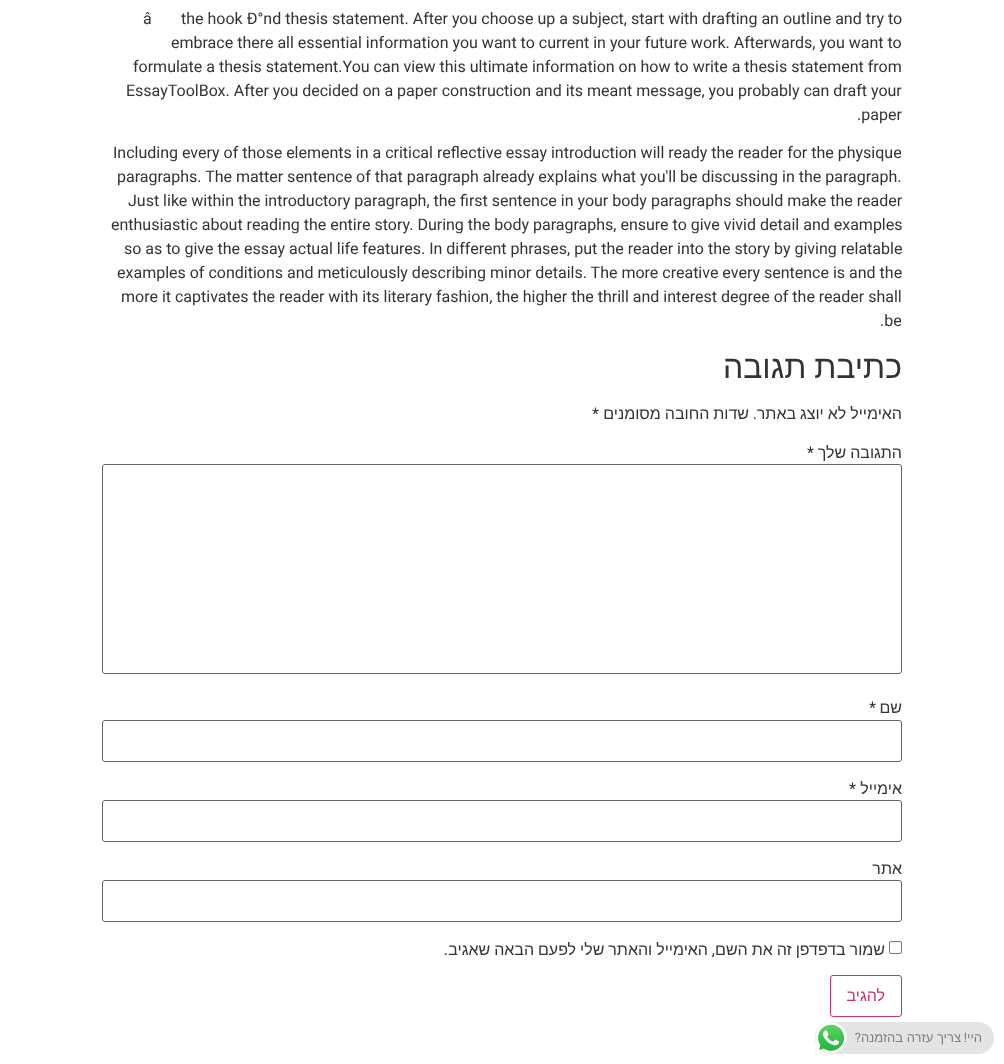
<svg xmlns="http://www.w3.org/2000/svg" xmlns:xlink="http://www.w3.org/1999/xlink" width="1004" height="1064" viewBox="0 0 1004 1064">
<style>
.cls-1{font:16px Roboto;fill:#333333}
.cls-2{font:32px Liberation Sans;direction:rtl;fill:#333333}
.cls-3{font:16px Liberation Sans;direction:rtl;fill:#333333}
.cls-4{font:16px Roboto;direction:rtl;fill:#333333}
.cls-5{font:16px Liberation Sans;direction:rtl;fill:#cc3366}
.cls-6{font:13px Roboto;direction:rtl;fill:#7f7d7d}
.cls-7{font:13px Liberation Sans;direction:rtl;fill:#7f7d7d}
</style>
<rect width="100%" height="100%" fill="#ffffff"/>
<rect fill="none" stroke="#666666" x="102.5" y="464.5" width="799" height="209" rx="2.5"/>
<rect fill="none" stroke="#666666" x="102.5" y="720.5" width="799" height="41" rx="2.5"/>
<rect fill="none" stroke="#666666" x="102.5" y="800.5" width="799" height="41" rx="2.5"/>
<rect fill="none" stroke="#666666" x="102.5" y="880.5" width="799" height="41" rx="2.5"/>
<rect fill="none" stroke="#767676" x="889.5" y="941.5" width="12" height="12" rx="1.5"/>
<rect fill="none" stroke="#cc3366" x="830.5" y="975.5" width="71" height="41" rx="2.5"/>
<rect fill="#e4e4e4" x="815" y="1022" width="179" height="32" rx="16"/>
<image xlink:href="image0.png" x="815" y="1022" width="32" height="32"/>
<text class="cls-1" x="143" y="24">â</text>
<text class="cls-1" x="181" y="24">the hook Ð°nd thesis statement. After you choose up a subject, start with drafting an outline and try to</text>
<text class="cls-1" x="171" y="48">embrace there all essential information you want to current in your future work. Afterwards, you want to</text>
<text class="cls-1" x="133" y="72">formulate a thesis statement.You can view this ultimate information on how to write a thesis statement from</text>
<text class="cls-1" x="126" y="96">EssayToolBox. After you decided on a paper construction and its meant message, you probably can draft your</text>
<text class="cls-1" x="857" y="120">.paper</text>
<text class="cls-1" x="113" y="158">Including every of those elements in a critical reflective essay introduction will ready the reader for the physique</text>
<text class="cls-1" x="117" y="182">paragraphs. The matter sentence of that paragraph already explains what you'll be discussing in the paragraph.</text>
<text class="cls-1" x="128" y="206">Just like within the introductory paragraph, the first sentence in your body paragraphs should make the reader</text>
<text class="cls-1" x="111" y="230">enthusiastic about reading the entire story. During the body paragraphs, ensure to give vivid detail and examples</text>
<text class="cls-1" x="124" y="254">so as to give the essay actual life features. In different phrases, put the reader into the story by giving relatable</text>
<text class="cls-1" x="117" y="278">examples of conditions and meticulously describing minor details. The more creative every sentence is and the</text>
<text class="cls-1" x="121" y="302">more it captivates the reader with its literary fashion, the higher the thrill and interest degree of the reader shall</text>
<text class="cls-1" x="880" y="326">.be</text>
<text class="cls-2" x="902" y="378" word-spacing="-1">כתיבת תגובה</text>
<text class="cls-1" x="592" y="419">*</text>
<text class="cls-3" x="749" y="419" word-spacing="-0.5">שדות החובה מסומנים</text>
<text class="cls-4" x="757" y="419">.</text>
<text class="cls-3" x="902" y="419" word-spacing="-0.5">האימייל לא יוצג באתר</text>
<text class="cls-1" x="807" y="458">*</text>
<text class="cls-3" x="902" y="458" word-spacing="-0.5">התגובה שלך</text>
<text class="cls-1" x="869" y="713">*</text>
<text class="cls-3" x="902" y="713">שם</text>
<text class="cls-1" x="849" y="794">*</text>
<text class="cls-3" x="902" y="794">אימייל</text>
<text class="cls-3" x="902" y="874">אתר</text>
<text class="cls-4" x="448" y="955">.</text>
<text class="cls-3" x="708" y="955" word-spacing="-0.5">האימייל והאתר שלי לפעם הבאה שאגיב</text>
<text class="cls-4" x="715" y="955">,</text>
<text class="cls-3" x="885" y="955" word-spacing="-0.5">שמור בדפדפן זה את השם</text>
<text class="cls-5" x="885" y="1001">להגיב</text>
<text class="cls-6" x="861" y="1042">?</text>
<text class="cls-7" x="961" y="1042">צריך עזרה בהזמנה</text>
<text class="cls-6" x="967" y="1042">!</text>
<text class="cls-7" x="982" y="1042">היי</text>
</svg>
